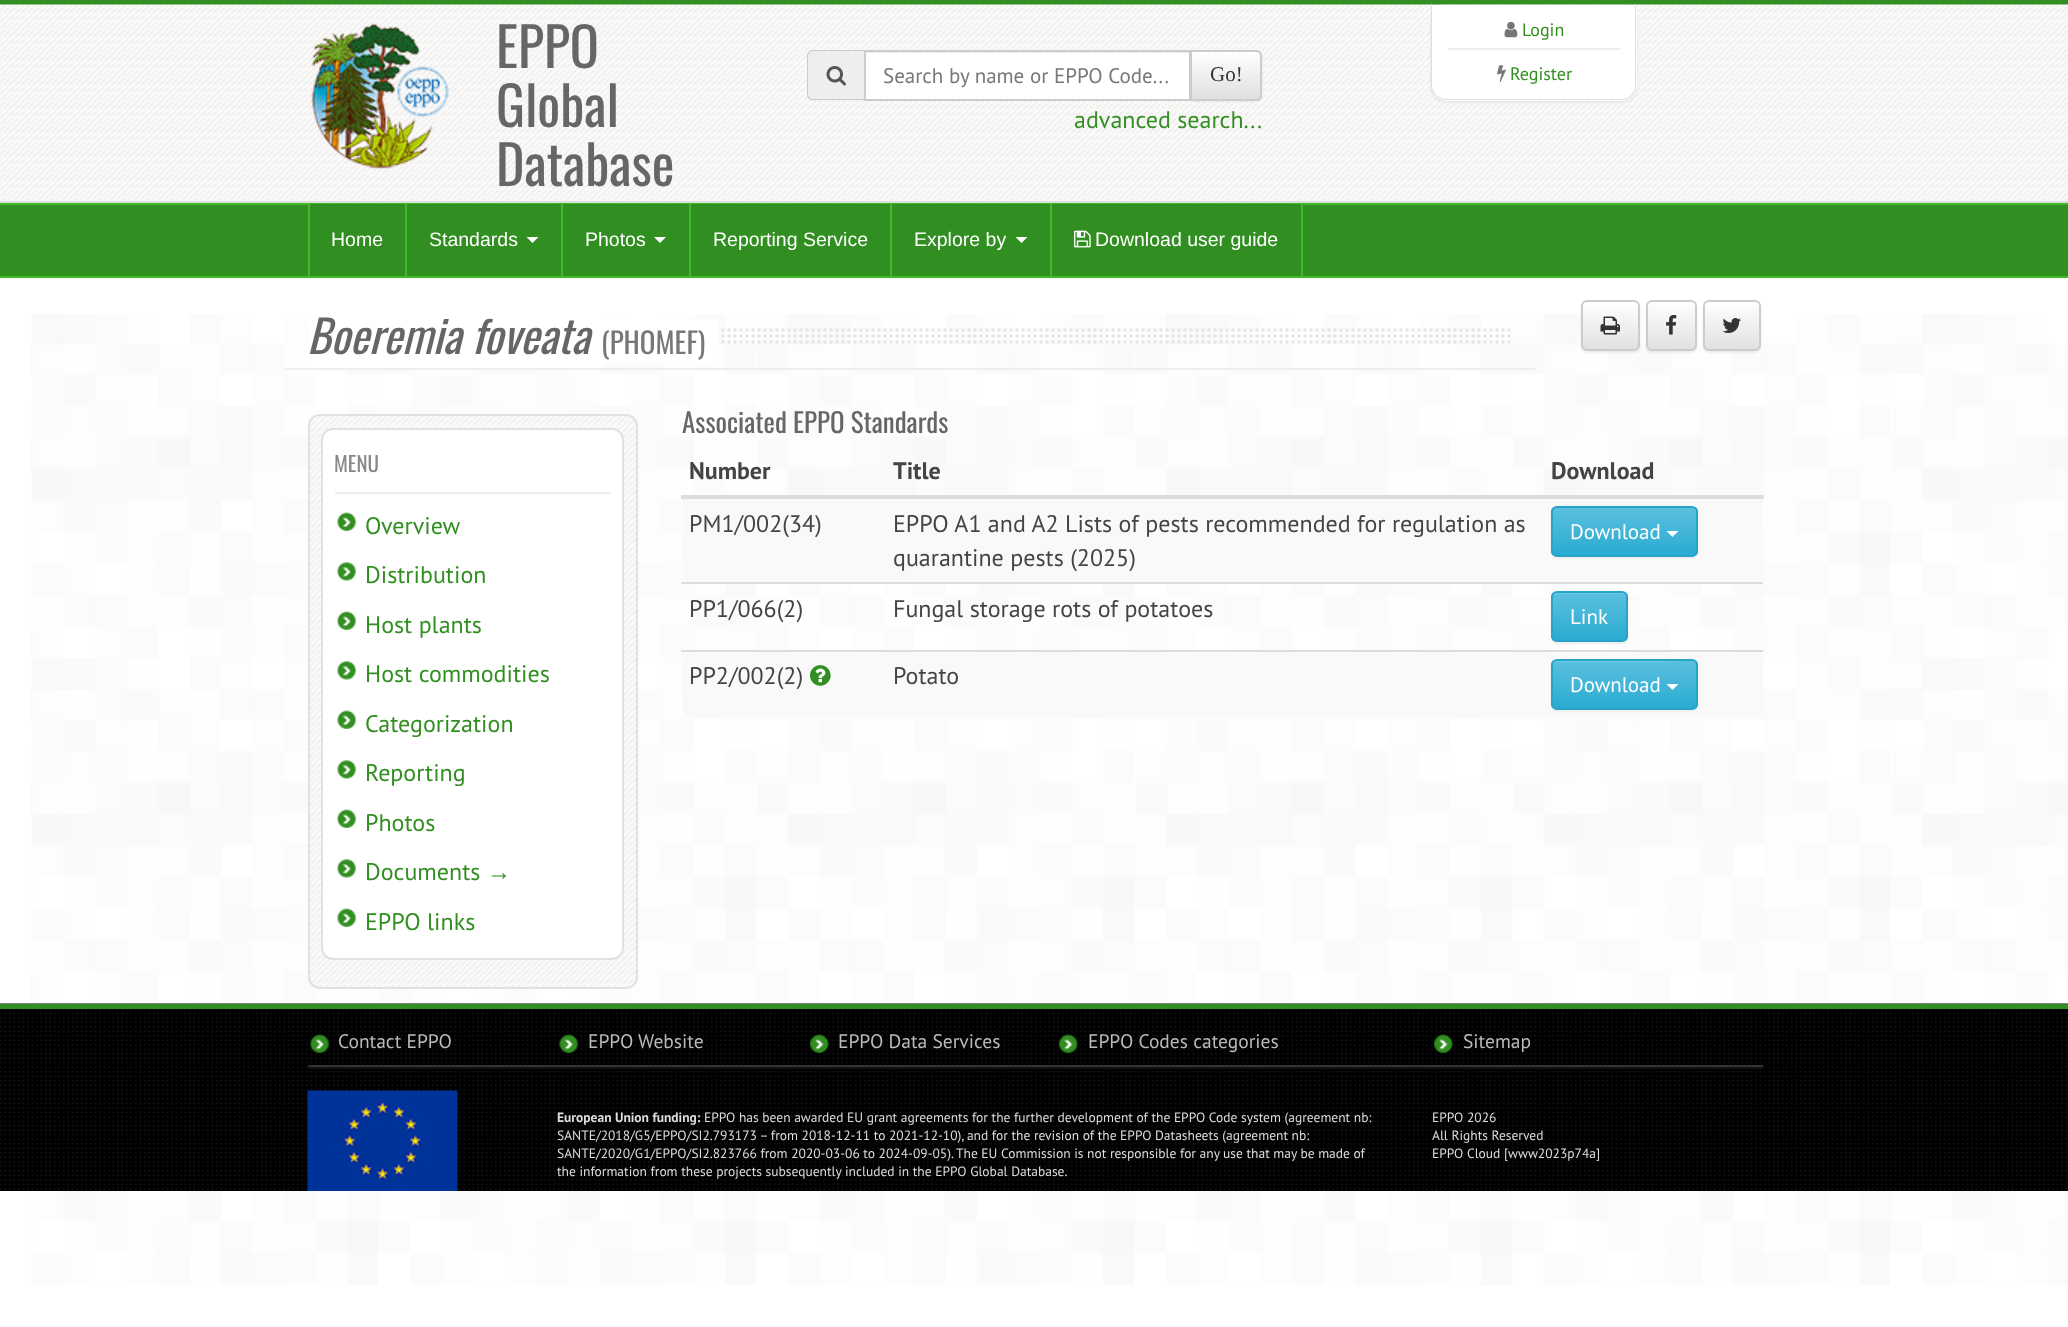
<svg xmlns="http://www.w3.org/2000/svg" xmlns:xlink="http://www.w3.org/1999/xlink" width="2068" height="1327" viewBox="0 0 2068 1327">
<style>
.cls-1{font:54px Oswald;fill:#666666}
.cls-2{font:18px PT Sans;fill:#318e20}
.cls-3{font:21px PT Sans;fill:#777777}
.cls-4{font:21px Liberation Serif;fill:#333333}
.cls-5{font:24px PT Sans;fill:#318e20}
.cls-6{font:19.5px Liberation Sans;fill:#ffffff}
.cls-7{font:italic 45px Oswald;fill:#666666}
.cls-8{font:29px Oswald;fill:#777777}
.cls-9{font:21px Oswald;fill:#888888}
.cls-10{font:24px Liberation Sans;fill:#318e20}
.cls-11{font:27px Oswald;fill:#666666}
.cls-12{font:bold 24px PT Sans;fill:#444444}
.cls-13{font:24px PT Sans;fill:#444444}
.cls-14{font:21px PT Sans;fill:#ffffff}
.cls-15{font:19.5px PT Sans;fill:#bbbbbb}
.cls-16{font:bold 13.5px PT Sans;fill:#dddddd}
.cls-17{font:13.5px PT Sans;fill:#dddddd}
</style>
<defs>
<clipPath id="clip1"><path d="M1190 50H1256C1259.5 50 1262 52.5 1262 56V95C1262 98.5 1259.5 101 1256 101H1190Z"/></clipPath>
<linearGradient id="g1" gradientUnits="userSpaceOnUse" x1="1226" y1="51" x2="1226" y2="99"><stop offset="0" stop-color="#ffffff"/><stop offset="1" stop-color="#e0e0e0"/></linearGradient>
<clipPath id="clip2"><rect x="1581" y="300" width="59" height="51" rx="6"/></clipPath>
<linearGradient id="g2" gradientUnits="userSpaceOnUse" x1="1610" y1="302" x2="1610" y2="350"><stop offset="0" stop-color="#ffffff"/><stop offset="1" stop-color="#e0e0e0"/></linearGradient>
<clipPath id="clip3"><rect x="1646" y="300" width="51" height="51" rx="6"/></clipPath>
<linearGradient id="g3" gradientUnits="userSpaceOnUse" x1="1671" y1="302" x2="1671" y2="350"><stop offset="0" stop-color="#ffffff"/><stop offset="1" stop-color="#e0e0e0"/></linearGradient>
<clipPath id="clip4"><rect x="1703" y="300" width="58" height="51" rx="6"/></clipPath>
<linearGradient id="g4" gradientUnits="userSpaceOnUse" x1="1732" y1="302" x2="1732" y2="350"><stop offset="0" stop-color="#ffffff"/><stop offset="1" stop-color="#e0e0e0"/></linearGradient>
<clipPath id="clip5"><rect x="1551" y="506" width="147" height="51" rx="6"/></clipPath>
<linearGradient id="g5" gradientUnits="userSpaceOnUse" x1="1625" y1="507" x2="1625" y2="555"><stop offset="0" stop-color="#5bc0de"/><stop offset="1" stop-color="#2aabd2"/></linearGradient>
<clipPath id="clip6"><rect x="1551" y="591" width="77" height="51" rx="6"/></clipPath>
<linearGradient id="g6" gradientUnits="userSpaceOnUse" x1="1589" y1="593" x2="1589" y2="641"><stop offset="0" stop-color="#5bc0de"/><stop offset="1" stop-color="#2aabd2"/></linearGradient>
<clipPath id="clip7"><rect x="1551" y="659" width="147" height="51" rx="6"/></clipPath>
<linearGradient id="g7" gradientUnits="userSpaceOnUse" x1="1625" y1="660" x2="1625" y2="708"><stop offset="0" stop-color="#5bc0de"/><stop offset="1" stop-color="#2aabd2"/></linearGradient>
</defs>
<rect width="100%" height="100%" fill="#ffffff"/>
<image xlink:href="image0.png" x="31" y="314" width="2037" height="971"/>
<rect fill="#318e20" x="0" y="0" width="2068" height="5"/>
<image xlink:href="image1.png" x="0" y="4" width="2068" height="197"/>
<rect fill="#dddddd" x="0" y="201" width="2068" height="2"/>
<image xlink:href="image2.png" x="311" y="23" width="138" height="146"/>
<rect fill="#dddddd" filter="blur(1.5px)" x="1431" y="6" width="206" height="96" rx="15"/>
<path fill="#ffffff" d="M1431 5H1637V86C1637 94.5 1630.5 101 1622 101H1446C1437.5 101 1431 94.5 1431 86Z"/>
<path fill="#dddddd" fill-rule="evenodd" d="M1431 4H1636V86C1636 94 1630 100 1622 100H1446C1438 100 1431 94 1431 86ZM1432 4H1635V86C1635 93 1629 99 1622 99H1446C1439 99 1432 93 1432 86Z"/>
<image xlink:href="image3.png" x="1504" y="21" width="14" height="17"/>
<rect fill="#eeeeee" x="1448" y="48" width="172" height="2"/>
<image xlink:href="image4.png" x="1497" y="65" width="9" height="17"/>
<path fill="#eeeeee" d="M813 50H864V101H813C809.5 101 807 98.5 807 95V56C807 52.5 809.5 50 813 50Z"/>
<path fill="#cccccc" fill-rule="evenodd" d="M813 50H864V100H813C810 100 807 98 807 94V56C807 52 810 50 813 50ZM813 51H864V99H813C811 99 808 97 808 94V56C808 53 811 51 813 51Z"/>
<image xlink:href="image5.png" x="826" y="66" width="20" height="20"/>
<rect fill="#000000" fill-opacity="0.07" filter="blur(1px)" x="1190" y="51" width="72" height="51" rx="6"/>
<rect fill="#ffffff" x="866" y="53" width="323" height="46"/>
<rect fill="#ececec" x="866" y="52" width="324" height="1"/>
<g clip-path="url(#clip1)">
<rect fill="url(#g1)" x="1192" y="51" width="70" height="48"/>
</g>
<path fill="none" stroke="#cccccc" stroke-width="2" d="M1191 51H1256C1259 51 1261 53 1261 56V95C1261 98 1259 100 1256 100H1191Z"/>
<rect fill="none" stroke="#cccccc" stroke-width="2" x="865" y="51" width="325" height="49"/>
<rect fill="#318e20" x="0" y="205" width="2068" height="71"/>
<rect fill="#3eba25" x="0" y="203" width="2068" height="2"/>
<rect fill="#3eba25" x="0" y="276" width="2068" height="2"/>
<rect fill="#3fb926" x="1301" y="204" width="2" height="72"/>
<rect fill="#318e20" x="310" y="204" width="95" height="1"/>
<rect fill="#3fb926" x="308" y="204" width="2" height="72"/>
<rect fill="#318e20" x="407" y="204" width="154" height="1"/>
<rect fill="#3fb926" x="405" y="204" width="2" height="72"/>
<path fill="#ffffff" d="M526.5 237H538.5L532.5 243Z"/>
<rect fill="#318e20" x="563" y="204" width="126" height="1"/>
<rect fill="#3fb926" x="561" y="204" width="2" height="72"/>
<path fill="#ffffff" d="M654 237H666L660 243Z"/>
<rect fill="#318e20" x="691" y="204" width="199" height="1"/>
<rect fill="#3fb926" x="689" y="204" width="2" height="72"/>
<rect fill="#318e20" x="892" y="204" width="158" height="1"/>
<rect fill="#3fb926" x="890" y="204" width="2" height="72"/>
<path fill="#ffffff" d="M1015.5 237H1027.5L1021.5 243Z"/>
<rect fill="#318e20" x="1052" y="204" width="249" height="1"/>
<rect fill="#3fb926" x="1050" y="204" width="2" height="72"/>
<image xlink:href="image6.png" x="1074" y="230" width="17" height="18"/>
<rect fill="#eeeeee" x="285" y="368" width="1250" height="2"/>
<image xlink:href="image7.png" x="307" y="328" width="1204" height="16"/>
<rect fill="#ffffff" x="308" y="314" width="294" height="54"/>
<rect fill="#ffffff" x="602" y="320" width="117" height="43"/>
<rect fill="#000000" fill-opacity="0.07" filter="blur(1px)" x="1581" y="302" width="59" height="51" rx="6"/>
<g clip-path="url(#clip2)">
<rect fill="url(#g2)" x="1581" y="302" width="59" height="48"/>
</g>
<rect fill="none" stroke="#cccccc" stroke-width="2" x="1582" y="301" width="57" height="49" rx="5"/>
<image xlink:href="image8.png" x="1600" y="316" width="20" height="19"/>
<rect fill="#000000" fill-opacity="0.07" filter="blur(1px)" x="1646" y="302" width="51" height="51" rx="6"/>
<g clip-path="url(#clip3)">
<rect fill="url(#g3)" x="1646" y="302" width="51" height="48"/>
</g>
<rect fill="none" stroke="#cccccc" stroke-width="2" x="1647" y="301" width="49" height="49" rx="5"/>
<image xlink:href="image9.png" x="1666" y="315" width="11" height="20"/>
<rect fill="#000000" fill-opacity="0.07" filter="blur(1px)" x="1703" y="302" width="58" height="51" rx="6"/>
<g clip-path="url(#clip4)">
<rect fill="url(#g4)" x="1703" y="302" width="58" height="48"/>
</g>
<rect fill="none" stroke="#cccccc" stroke-width="2" x="1704" y="301" width="56" height="49" rx="5"/>
<image xlink:href="image10.png" x="1722" y="318" width="19" height="15"/>
<image xlink:href="image11.png" x="308" y="414" width="330" height="574"/>
<rect fill="none" stroke="#e1e1e1" stroke-width="2" x="309" y="415" width="328" height="573" rx="11"/>
<rect fill="#ffffff" stroke="#e1e1e1" stroke-width="2" x="322" y="429" width="301" height="530" rx="11"/>
<rect fill="#eeeeee" x="335" y="492" width="276" height="2"/>
<image xlink:href="image12.png" x="337" y="512" width="19" height="19"/>
<image xlink:href="image13.png" x="337" y="562" width="19" height="19"/>
<image xlink:href="image12.png" x="337" y="611" width="19" height="19"/>
<image xlink:href="image13.png" x="337" y="661" width="19" height="19"/>
<image xlink:href="image12.png" x="337" y="710" width="19" height="19"/>
<image xlink:href="image13.png" x="337" y="760" width="19" height="19"/>
<image xlink:href="image12.png" x="337" y="809" width="19" height="19"/>
<image xlink:href="image13.png" x="337" y="859" width="19" height="19"/>
<image xlink:href="image12.png" x="337" y="908" width="19" height="19"/>
<rect fill="#dddddd" x="681" y="495" width="1083" height="3"/>
<rect fill="#f9f9f9" x="683" y="499" width="861" height="83"/>
<rect fill="#f9f9f9" x="1544" y="500" width="219" height="82"/>
<rect fill="#dddddd" x="681" y="498" width="1082" height="1"/>
<rect fill="#000000" fill-opacity="0.07" filter="blur(1px)" x="1551" y="507" width="147" height="51" rx="6"/>
<g clip-path="url(#clip5)">
<rect fill="url(#g5)" x="1551" y="507" width="147" height="48"/>
</g>
<path fill="#ffffff" fill-opacity="0.15" d="M1557 508H1670C1697 508 1696 503 1696 526V553C1697 552 1697 551 1697 550V512C1697 509 1695 507 1692 507H1558C1556 507 1554 508 1553 510C1554 509 1556 508 1557 508Z"/>
<rect fill="none" stroke="#28a4c9" stroke-width="2" x="1552" y="507" width="145" height="49" rx="5"/>
<path fill="#ffffff" d="M1666.5 531H1678.5L1672.5 537Z"/>
<rect fill="#dddddd" x="681" y="582" width="1082" height="2"/>
<rect fill="#000000" fill-opacity="0.07" filter="blur(1px)" x="1551" y="593" width="77" height="51" rx="6"/>
<g clip-path="url(#clip6)">
<rect fill="url(#g6)" x="1551" y="593" width="77" height="48"/>
</g>
<path fill="#73c9e3" d="M1557 594H1622C1624 594 1626 596 1626 598C1626 595 1624 593 1621 593H1558C1556 593 1555 594 1554 595Z"/>
<rect fill="none" stroke="#28a4c9" stroke-width="2" x="1552" y="592" width="75" height="49" rx="5"/>
<rect fill="#f9f9f9" x="683" y="652" width="1080" height="65"/>
<image xlink:href="image14.png" x="810" y="665" width="21" height="21"/>
<rect fill="#dddddd" x="681" y="650" width="1082" height="2"/>
<rect fill="#000000" fill-opacity="0.07" filter="blur(1px)" x="1551" y="660" width="147" height="51" rx="6"/>
<g clip-path="url(#clip7)">
<rect fill="url(#g7)" x="1551" y="660" width="147" height="48"/>
</g>
<path fill="#ffffff" fill-opacity="0.15" d="M1557 662H1670C1673 662 1694 658 1696 665V706C1697 705 1697 704 1697 703V665C1697 662 1695 660 1692 660H1558C1556 660 1554 662 1553 664C1554 663 1556 662 1557 662Z"/>
<rect fill="none" stroke="#28a4c9" stroke-width="2" x="1552" y="660" width="145" height="49" rx="5"/>
<path fill="#ffffff" d="M1666.5 684H1678.5L1672.5 690Z"/>
<image xlink:href="image15.png" x="0" y="1003" width="2068" height="188"/>
<rect fill="#318e20" x="0" y="1004" width="2068" height="5"/>
<image xlink:href="image16.png" x="310" y="1034" width="19" height="19"/>
<image xlink:href="image17.png" x="559" y="1034" width="19" height="19"/>
<image xlink:href="image18.png" x="810" y="1034" width="19" height="19"/>
<image xlink:href="image19.png" x="1059" y="1034" width="19" height="19"/>
<image xlink:href="image20.png" x="1434" y="1034" width="19" height="19"/>
<rect fill="#333333" x="308" y="1065" width="1455" height="2"/>
<rect fill="#111111" x="308" y="1067" width="1455" height="2"/>
<image xlink:href="image21.png" x="307" y="1090" width="151" height="101"/>
<text class="cls-1"><tspan x="496" y="68">EPPO</tspan><tspan x="496" y="127">Global</tspan><tspan x="496" y="186">Database</tspan></text>
<text class="cls-2" x="1522" y="36">Login</text>
<text class="cls-2" x="1510" y="80">Register</text>
<text class="cls-3" x="883" y="83">Search by name or EPPO Code...</text>
<text class="cls-4" x="1210" y="81">Go!</text>
<text class="cls-5" x="1074" y="128">advanced search...</text>
<text class="cls-6" x="331" y="246">Home</text>
<text class="cls-6" x="429" y="246">Standards</text>
<text class="cls-6" x="585" y="246">Photos</text>
<text class="cls-6" x="713" y="246">Reporting Service</text>
<text class="cls-6" x="914" y="246">Explore by</text>
<text class="cls-6" x="1095" y="246">Download user guide</text>
<text class="cls-7" x="307" y="354">Boeremia foveata</text>
<text class="cls-8" x="601" y="354">(PHOMEF)</text>
<text class="cls-9" x="334" y="472">MENU</text>
<text class="cls-5" x="365" y="534">Overview</text>
<text class="cls-5" x="365" y="583">Distribution</text>
<text class="cls-5" x="365" y="633">Host plants</text>
<text class="cls-5" x="365" y="682">Host commodities</text>
<text class="cls-5" x="365" y="732">Categorization</text>
<text class="cls-5" x="365" y="781">Reporting</text>
<text class="cls-5" x="365" y="831">Photos</text>
<text class="cls-5" x="365" y="880">Documents</text>
<text class="cls-10" x="487" y="880">→</text>
<text class="cls-5" x="365" y="930">EPPO links</text>
<text class="cls-11" x="682" y="433">Associated EPPO Standards</text>
<text class="cls-12" x="689" y="479">Number</text>
<text class="cls-12" x="893" y="479">Title</text>
<text class="cls-12" x="1551" y="479">Download</text>
<text class="cls-13" x="689" y="532">PM1/002(34)</text>
<text class="cls-13"><tspan x="893" y="532">EPPO A1 and A2 Lists of pests recommended for regulation as</tspan><tspan x="893" y="566">quarantine pests (2025)</tspan></text>
<text class="cls-14" x="1570" y="539">Download</text>
<text class="cls-13" x="689" y="617">PP1/066(2)</text>
<text class="cls-13" x="893" y="617">Fungal storage rots of potatoes</text>
<text class="cls-14" x="1570" y="624">Link</text>
<text class="cls-13" x="689" y="684">PP2/002(2)</text>
<text class="cls-13" x="893" y="684">Potato</text>
<text class="cls-14" x="1570" y="692">Download</text>
<text class="cls-15" x="338" y="1048">Contact EPPO</text>
<text class="cls-15" x="588" y="1048">EPPO Website</text>
<text class="cls-15" x="838" y="1048">EPPO Data Services</text>
<text class="cls-15" x="1088" y="1048">EPPO Codes categories</text>
<text class="cls-15" x="1463" y="1048">Sitemap</text>
<text class="cls-16" x="557" y="1122">European Union funding:</text>
<text class="cls-17" x="704" y="1122">EPPO has been awarded EU grant agreements for the further development of the EPPO Code system (agreement nb:</text>
<text class="cls-17"><tspan x="557" y="1140">SANTE/2018/G5/EPPO/SI2.793173 – from 2018-12-11 to 2021-12-10), and for the revision of the EPPO Datasheets (agreement nb:</tspan><tspan x="557" y="1158">SANTE/2020/G1/EPPO/SI2.823766 from 2020-03-06 to 2024-09-05). The EU Commission is not responsible for any use that may be made of</tspan><tspan x="557" y="1176">the information from these projects subsequently included in the EPPO Global Database.</tspan></text>
<text class="cls-17"><tspan x="1432" y="1122">EPPO 2026</tspan><tspan x="1432" y="1140">All Rights Reserved</tspan><tspan x="1432" y="1158">EPPO Cloud [www2023p74a]</tspan></text>
</svg>
